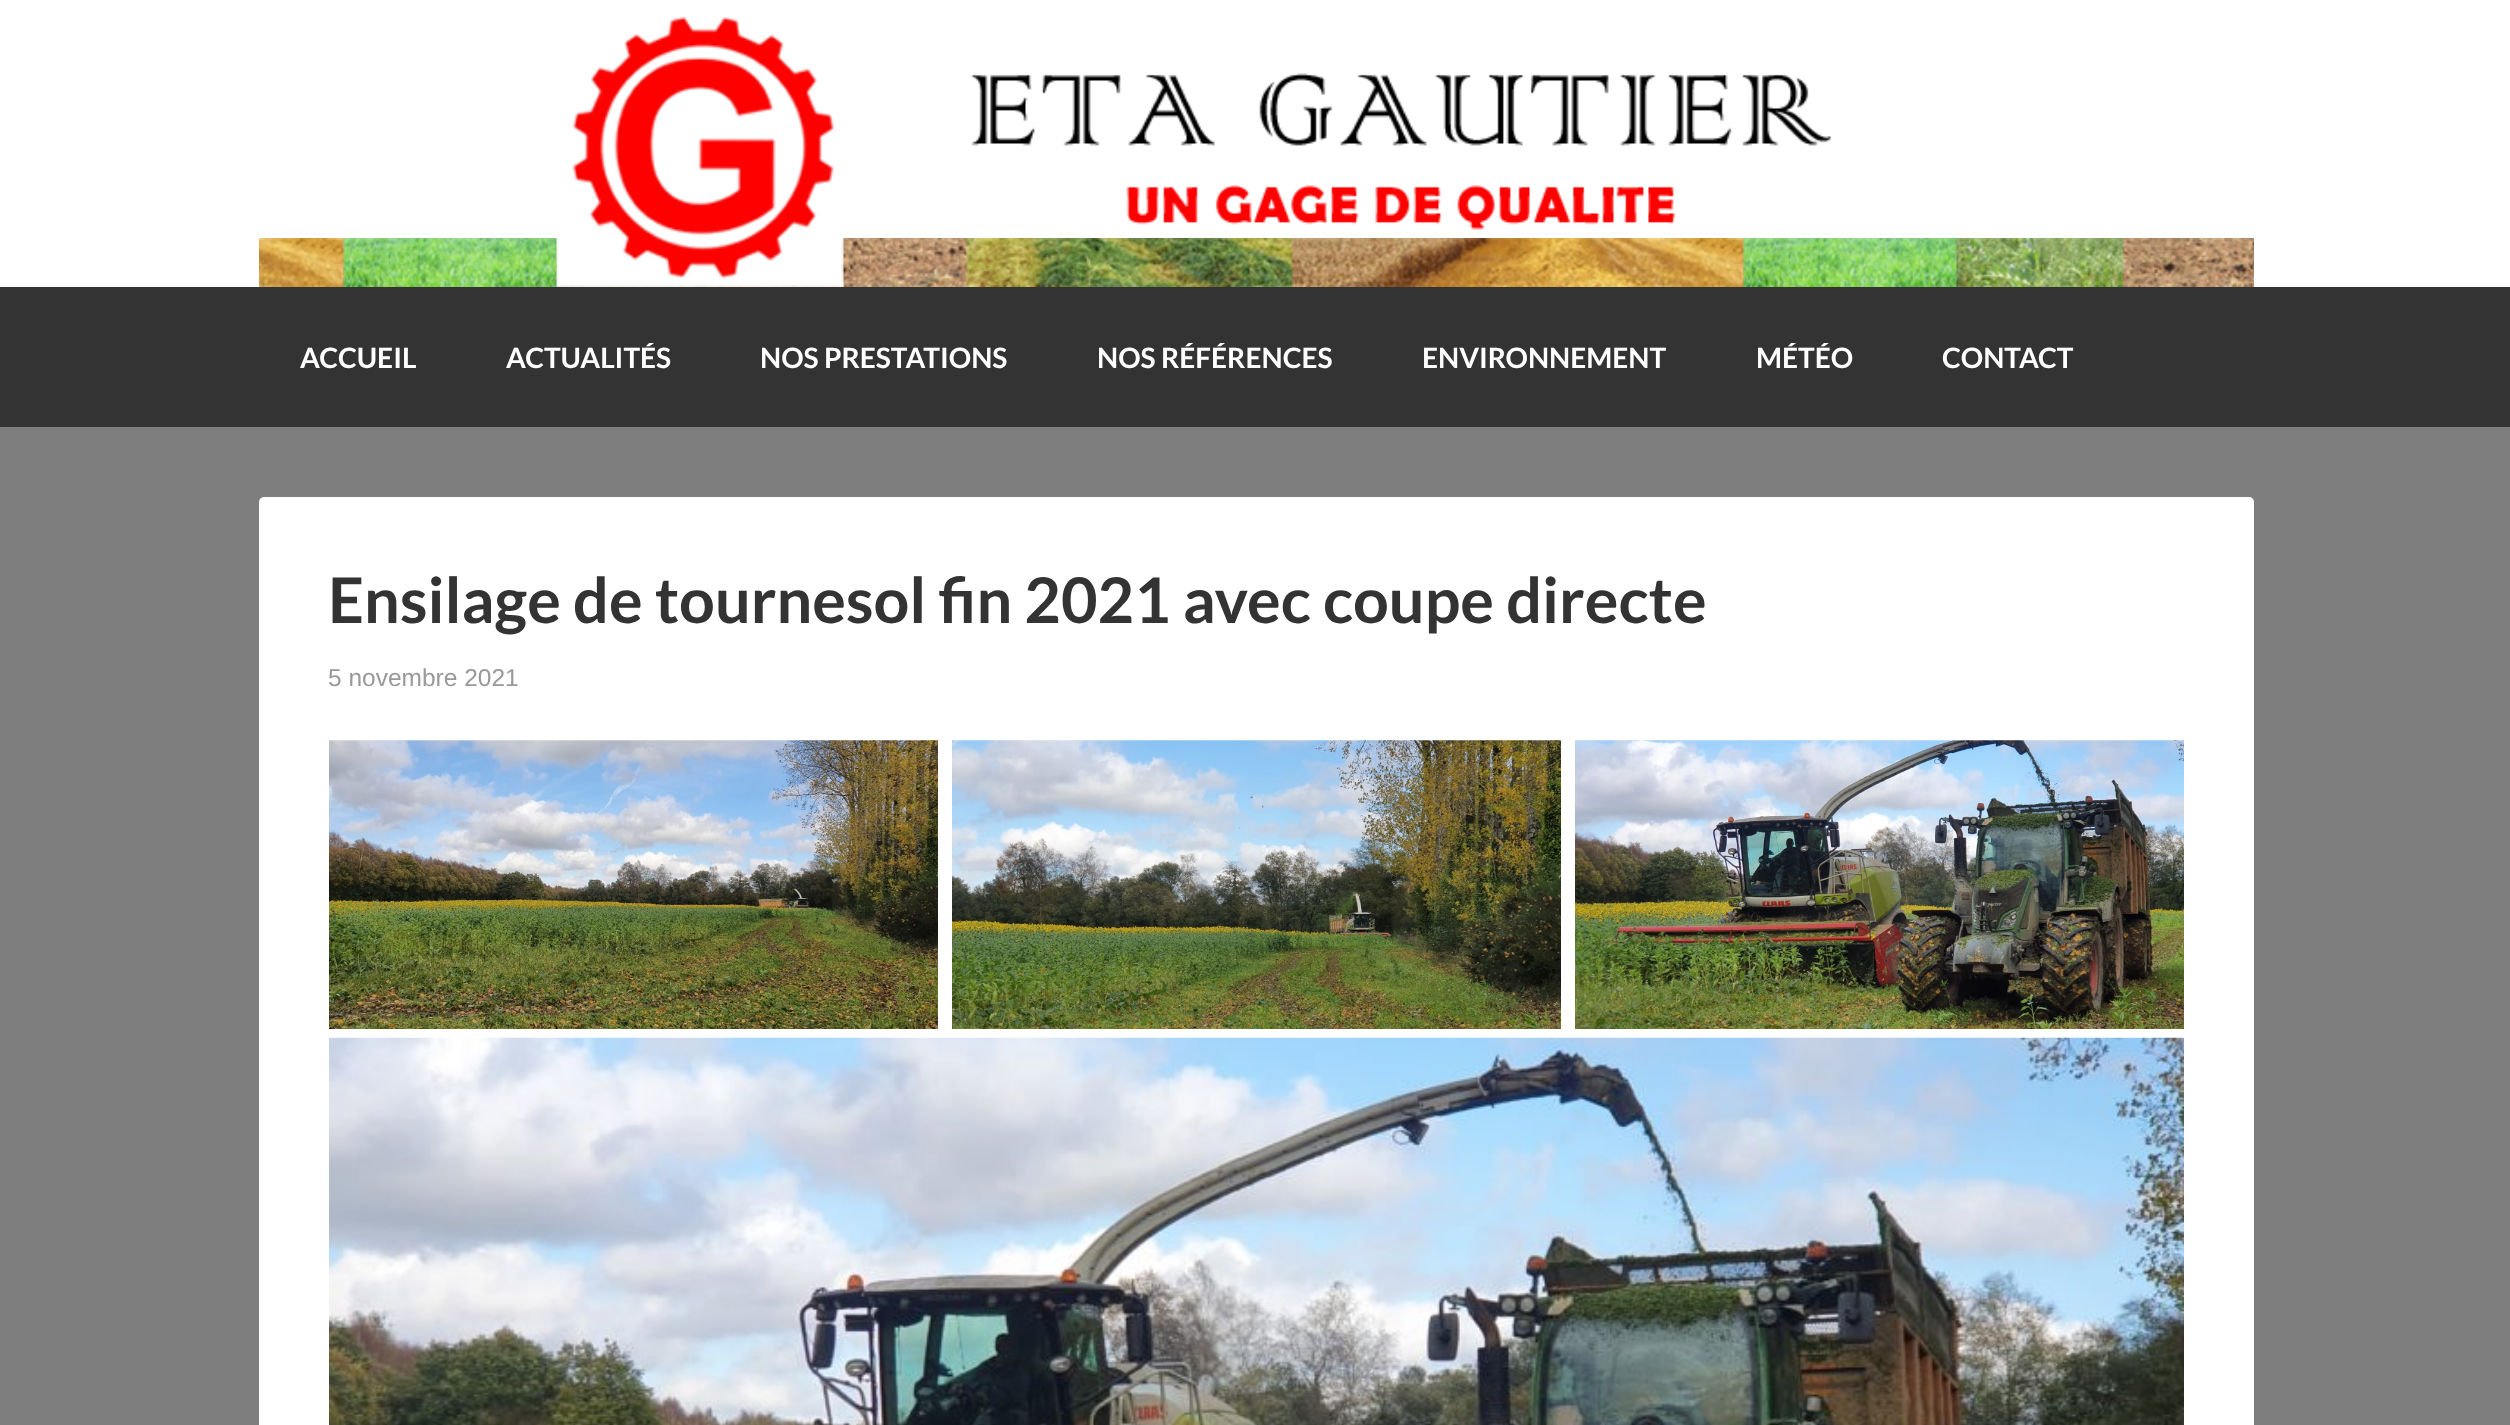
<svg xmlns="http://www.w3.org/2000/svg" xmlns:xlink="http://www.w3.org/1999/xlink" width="2510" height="1425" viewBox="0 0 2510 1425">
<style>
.cls-1{font:bold 28px Lato;fill:#ffffff}
.cls-2{font:bold 63px Lato;fill:#333333}
.cls-3{font:24.5px Liberation Sans;fill:#999999}
</style>
<rect width="100%" height="100%" fill="#7e7e7e"/>
<rect fill="#ffffff" x="0" y="0" width="2510" height="287"/>
<image xlink:href="image0.png" x="259" y="16" width="1995" height="271"/>
<rect fill="#333333" x="0" y="287" width="2510" height="140"/>
<rect fill="#ffffff" x="259" y="497" width="1995" height="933" rx="5"/>
<image xlink:href="image1.png" x="329" y="740" width="609" height="289"/>
<image xlink:href="image2.png" x="952" y="740" width="609" height="289"/>
<image xlink:href="image3.png" x="1575" y="740" width="609" height="289"/>
<image xlink:href="image4.png" x="329" y="1037" width="1855" height="388"/>
<text class="cls-1" x="300" y="368">ACCUEIL</text>
<text class="cls-1" x="506" y="368">ACTUALITÉS</text>
<text class="cls-1" x="760" y="368">NOS PRESTATIONS</text>
<text class="cls-1" x="1097" y="368">NOS RÉFÉRENCES</text>
<text class="cls-1" x="1422" y="368">ENVIRONNEMENT</text>
<text class="cls-1" x="1756" y="368">MÉTÉO</text>
<text class="cls-1" x="1942" y="368">CONTACT</text>
<text class="cls-2" x="328" y="623">Ensilage de tournesol fin 2021 avec coupe directe</text>
<text class="cls-3" x="328" y="686">5 novembre 2021</text>
</svg>
